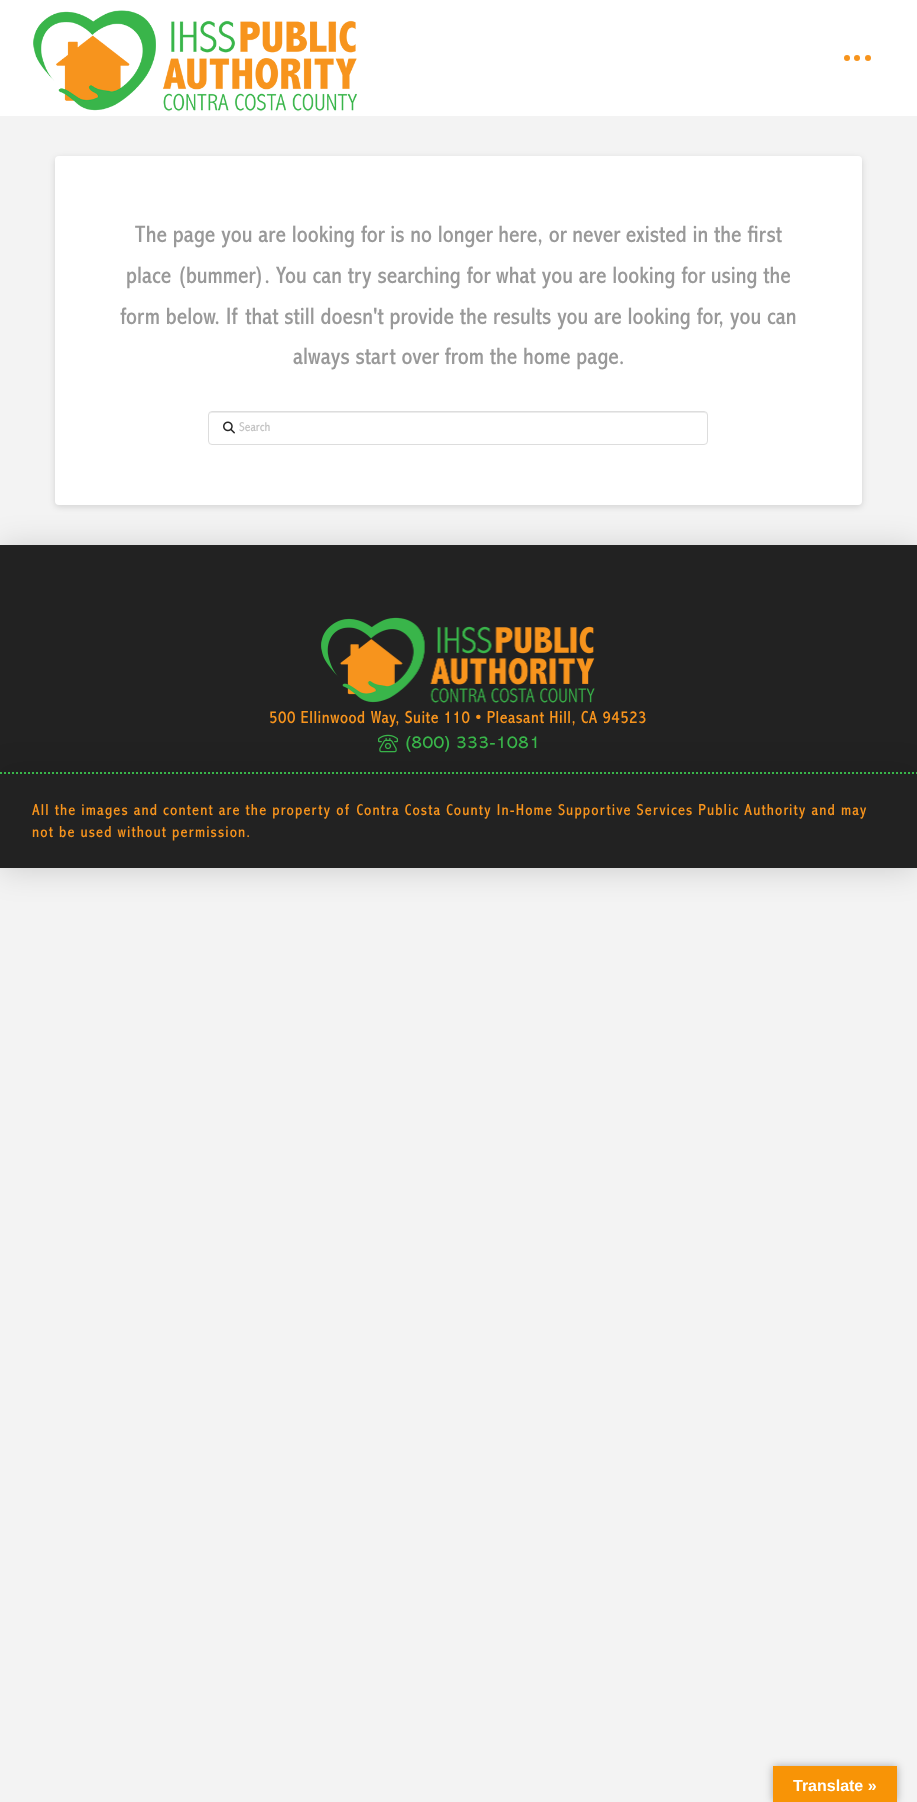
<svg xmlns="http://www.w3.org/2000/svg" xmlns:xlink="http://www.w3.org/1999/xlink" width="917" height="1802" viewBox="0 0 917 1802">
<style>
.cls-1{font:500 24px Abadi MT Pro;fill:#999999}
.cls-2{font:500 13px Abadi MT Pro;fill:#c5c5c5}
.cls-3{font:500 17.6px Abadi MT Pro;letter-spacing:0.53px;fill:#f7941d}
.cls-4{font:17.6px Abadi MT Pro;letter-spacing:0.53px;fill:#39b54a}
.cls-5{font:500 16px Abadi MT Pro;letter-spacing:1.12px;fill:#f7941d}
.cls-6{font:bold 16px Liberation Sans;fill:#ffffff}
</style>
<rect width="100%" height="100%" fill="#f3f3f3"/>
<rect fill="#ffffff" x="0" y="0" width="917" height="116"/>
<image xlink:href="image0.png" x="33" y="10" width="324" height="102"/>
<circle fill="#f7941d" cx="847" cy="58" r="3"/>
<circle fill="#f7941d" cx="857" cy="58" r="3"/>
<circle fill="#f7941d" cx="868" cy="58" r="3"/>
<rect fill="#000000" fill-opacity="0.13" filter="blur(3px)" x="55" y="158" width="807" height="349" rx="4"/>
<rect fill="#ffffff" x="55" y="156" width="807" height="349" rx="4"/>
<path fill="#ececec" d="M212 413H704C706 413 707 414 707 416C707 414 706 412 704 412H212C210 412 209 414 209 416C209 414 210 413 212 413Z"/>
<rect fill="none" stroke="#dddddd" x="208.5" y="411.5" width="499" height="33" rx="3.5"/>
<image xlink:href="image1.png" x="223" y="421" width="12" height="13"/>
<rect fill="#000000" fill-opacity="0.15" filter="blur(16px)" x="0" y="547" width="917" height="227"/>
<rect fill="#222222" x="0" y="545" width="917" height="227"/>
<image xlink:href="image2.png" x="321" y="617" width="274" height="86"/>
<image xlink:href="image3.png" x="378" y="734" width="20" height="19"/>
<rect fill="#000000" fill-opacity="0.15" filter="blur(16px)" x="0" y="774" width="917" height="96"/>
<rect fill="#222222" x="0" y="772" width="917" height="96"/>
<path fill="none" stroke="#39b54a" stroke-width="2" stroke-dasharray="2 2" d="M0 773H917"/>
<rect fill="#000000" fill-opacity="0.3" filter="blur(4.5px)" x="773" y="1766" width="124" height="36"/>
<rect fill="#f89406" x="773" y="1766" width="124" height="36"/>
<text class="cls-1" x="135" y="242">The page you are looking for is no longer here, or never existed in the first</text>
<text class="cls-1" x="126" y="283">place (bummer). You can try searching for what you are looking for using the</text>
<text class="cls-1" x="120" y="324">form below. If that still doesn't provide the results you are looking for, you can</text>
<text class="cls-1" x="293" y="364">always start over from the home page.</text>
<text class="cls-2" x="239" y="431">Search</text>
<text class="cls-3" x="269" y="723">500 Ellinwood Way, Suite 110 • Pleasant Hill, CA 94523</text>
<text class="cls-4" x="406" y="748">(800) 333-1081</text>
<text class="cls-5"><tspan x="32" y="815">All the images and content are the property of Contra Costa County In-Home Supportive Services Public Authority and may</tspan><tspan x="32" y="837">not be used without permission.</tspan></text>
<text class="cls-6" x="793" y="1791">Translate »</text>
</svg>
